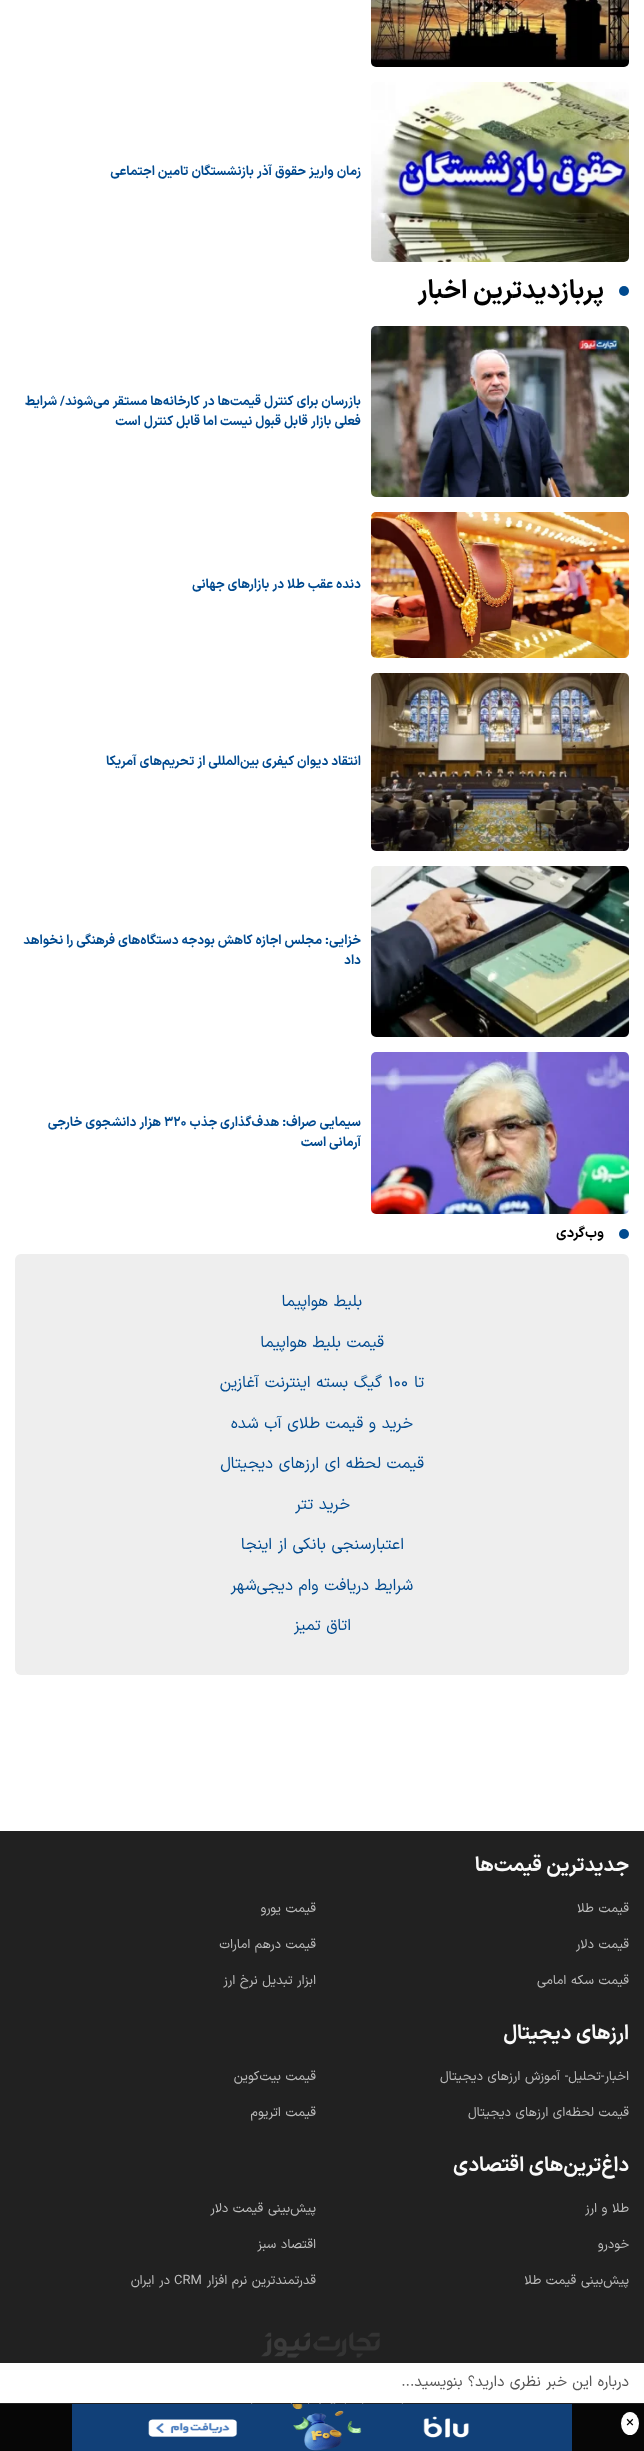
<svg xmlns="http://www.w3.org/2000/svg" xmlns:xlink="http://www.w3.org/1999/xlink" width="644" height="2451" viewBox="0 0 644 2451">
<style>
.cls-1{font:bold 13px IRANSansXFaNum;direction:rtl;fill:#014a8f}
.cls-2{font:bold 25.75px IRANSansXFaNum;direction:rtl;fill:#000000}
.cls-3{font:bold 13px IRANSansXFaNum;fill:#014a8f}
.cls-4{font:bold 14px IRANSansXFaNum;direction:rtl;fill:#000000}
.cls-5{font:16px IRANSansXFaNum;direction:rtl;fill:#014a8f}
.cls-6{font:16px IRANSansXFaNum;fill:#014a8f}
.cls-7{font:15px IRANSansXFaNum;direction:rtl;fill:#555555}
.cls-8{font:bold 20px IRANSansXFaNum;direction:rtl;fill:#fafafa}
.cls-9{font:13px IRANSansXFaNum;direction:rtl;fill:#bdbdbd}
.cls-10{font:13px IRANSansXFaNum;fill:#bdbdbd}
.cls-11{font:15px IRANSansXFaNum;fill:#000000}
</style>
<rect width="100%" height="100%" fill="#ffffff"/>
<image xlink:href="image0.png" x="371" y="0" width="258" height="67"/>
<image xlink:href="image1.png" x="371" y="82" width="258" height="180"/>
<circle fill="#004a8f" cx="624" cy="291" r="5"/>
<image xlink:href="image2.png" x="371" y="326" width="258" height="171"/>
<image xlink:href="image3.png" x="371" y="512" width="258" height="146"/>
<image xlink:href="image4.png" x="371" y="673" width="258" height="178"/>
<image xlink:href="image5.png" x="371" y="866" width="258" height="171"/>
<image xlink:href="image6.png" x="371" y="1052" width="258" height="162"/>
<circle fill="#004a8f" cx="624" cy="1234" r="5"/>
<rect fill="#eeeeee" x="15" y="1254" width="614" height="421" rx="6"/>
<rect fill="#212121" x="0" y="1831" width="644" height="620"/>
<path fill="none" stroke="#707070" d="M382.5 2387.5C410 2387.5 410 2431.5 382.5 2431.5C355 2431.5 355 2387.5 382.5 2387.5Z"/>
<path fill="none" stroke="#707070" d="M327 2387.5C352.5 2387.5 352.5 2431.5 327 2431.5C301.5 2431.5 301.5 2387.5 327 2387.5Z"/>
<path fill="none" stroke="#707070" d="M271.5 2387.5C299 2387.5 299 2431.5 271.5 2431.5C244 2431.5 244 2387.5 271.5 2387.5Z"/>
<rect fill="#ffffff" x="0" y="2363" width="644" height="40"/>
<image xlink:href="image7.png" x="261" y="2332" width="119" height="26"/>
<image xlink:href="image8.png" x="319" y="2403" width="17" height="1"/>
<rect fill="#000000" fill-opacity="0.8" x="0" y="2404" width="644" height="47"/>
<ellipse fill="#ffffff" cx="630" cy="2423.5" rx="9" ry="11.5"/>
<image xlink:href="image9.png" x="72" y="2404" width="500" height="47"/>
<text class="cls-1" x="361" y="175">زمان واریز حقوق آذر بازنشستگان تامین اجتماعی</text>
<text class="cls-2" x="604" y="298">پربازدیدترین اخبار</text>
<text class="cls-1"><tspan x="361" y="405">بازرسان برای کنترل قیمت‌ها در کارخانه‌ها مستقر می‌شوند/ شرایط</tspan><tspan x="361" y="425">فعلی بازار قابل قبول نیست اما قابل کنترل است</tspan></text>
<text class="cls-1" x="361" y="588">دنده عقب طلا در بازارهای جهانی</text>
<text class="cls-1" x="361" y="765">انتقاد دیوان کیفری بین‌المللی از تحریم‌های آمریکا</text>
<text class="cls-1"><tspan x="361" y="944">خزایی: مجلس اجازه کاهش بودجه دستگاه‌های فرهنگی را نخواهد</tspan><tspan x="361" y="964">داد</tspan></text>
<text class="cls-1" x="361" y="1126">سیمایی صراف: هدف‌گذاری جذب</text>
<text class="cls-3" x="164" y="1126">۳۲۰</text>
<text class="cls-1" x="161" y="1126">هزار دانشجوی خارجی</text>
<text class="cls-1" x="361" y="1146">آرمانی است</text>
<text class="cls-4" x="604" y="1237">وب‌گردی</text>
<text class="cls-5" x="362" y="1306">بلیط هواپیما</text>
<text class="cls-5" x="384" y="1347">قیمت بلیط هواپیما</text>
<text class="cls-5" x="424" y="1387">تا</text>
<text class="cls-6" x="388" y="1387">100</text>
<text class="cls-5" x="382" y="1387">گیگ بسته اینترنت آغازین</text>
<text class="cls-5" x="413" y="1428">خرید و قیمت طلای آب شده</text>
<text class="cls-5" x="424" y="1468">قیمت لحظه ای ارزهای دیجیتال</text>
<text class="cls-5" x="350" y="1509">خرید تتر</text>
<text class="cls-5" x="404" y="1549">اعتبارسنجی بانکی از اینجا</text>
<text class="cls-5" x="413" y="1590">شرایط دریافت وام دیجی‌شهر</text>
<text class="cls-5" x="351" y="1630">اتاق تمیز</text>
<text class="cls-7" x="629" y="2386">درباره این خبر نظری دارید؟ بنویسید...</text>
<text class="cls-8" x="629" y="1871">جدیدترین قیمت‌ها</text>
<text class="cls-9" x="629" y="1912">قیمت طلا</text>
<text class="cls-9" x="316" y="1912">قیمت یورو</text>
<text class="cls-9" x="629" y="1948">قیمت دلار</text>
<text class="cls-9" x="316" y="1948">قیمت درهم امارات</text>
<text class="cls-9" x="629" y="1984">قیمت سکه امامی</text>
<text class="cls-9" x="316" y="1984">ابزار تبدیل نرخ ارز</text>
<text class="cls-8" x="629" y="2039">ارزهای دیجیتال</text>
<text class="cls-9" x="629" y="2080">اخبار-تحلیل- آموزش ارزهای دیجیتال</text>
<text class="cls-9" x="316" y="2080">قیمت بیت‌کوین</text>
<text class="cls-9" x="629" y="2116">قیمت لحظه‌ای ارزهای دیجیتال</text>
<text class="cls-9" x="316" y="2116">قیمت اتریوم</text>
<text class="cls-8" x="629" y="2171">داغ‌ترین‌های اقتصادی</text>
<text class="cls-9" x="629" y="2212">طلا و ارز</text>
<text class="cls-9" x="316" y="2212">پیش‌بینی قیمت دلار</text>
<text class="cls-9" x="629" y="2248">خودرو</text>
<text class="cls-9" x="316" y="2248">اقتصاد سبز</text>
<text class="cls-9" x="629" y="2284">پیش‌بینی قیمت طلا</text>
<text class="cls-9" x="316" y="2284">قدرتمندترین نرم‌ افزار</text>
<text class="cls-10" x="174" y="2284">CRM</text>
<text class="cls-9" x="170" y="2284">در ایران</text>
<text class="cls-11" x="626" y="2427">×</text>
</svg>
